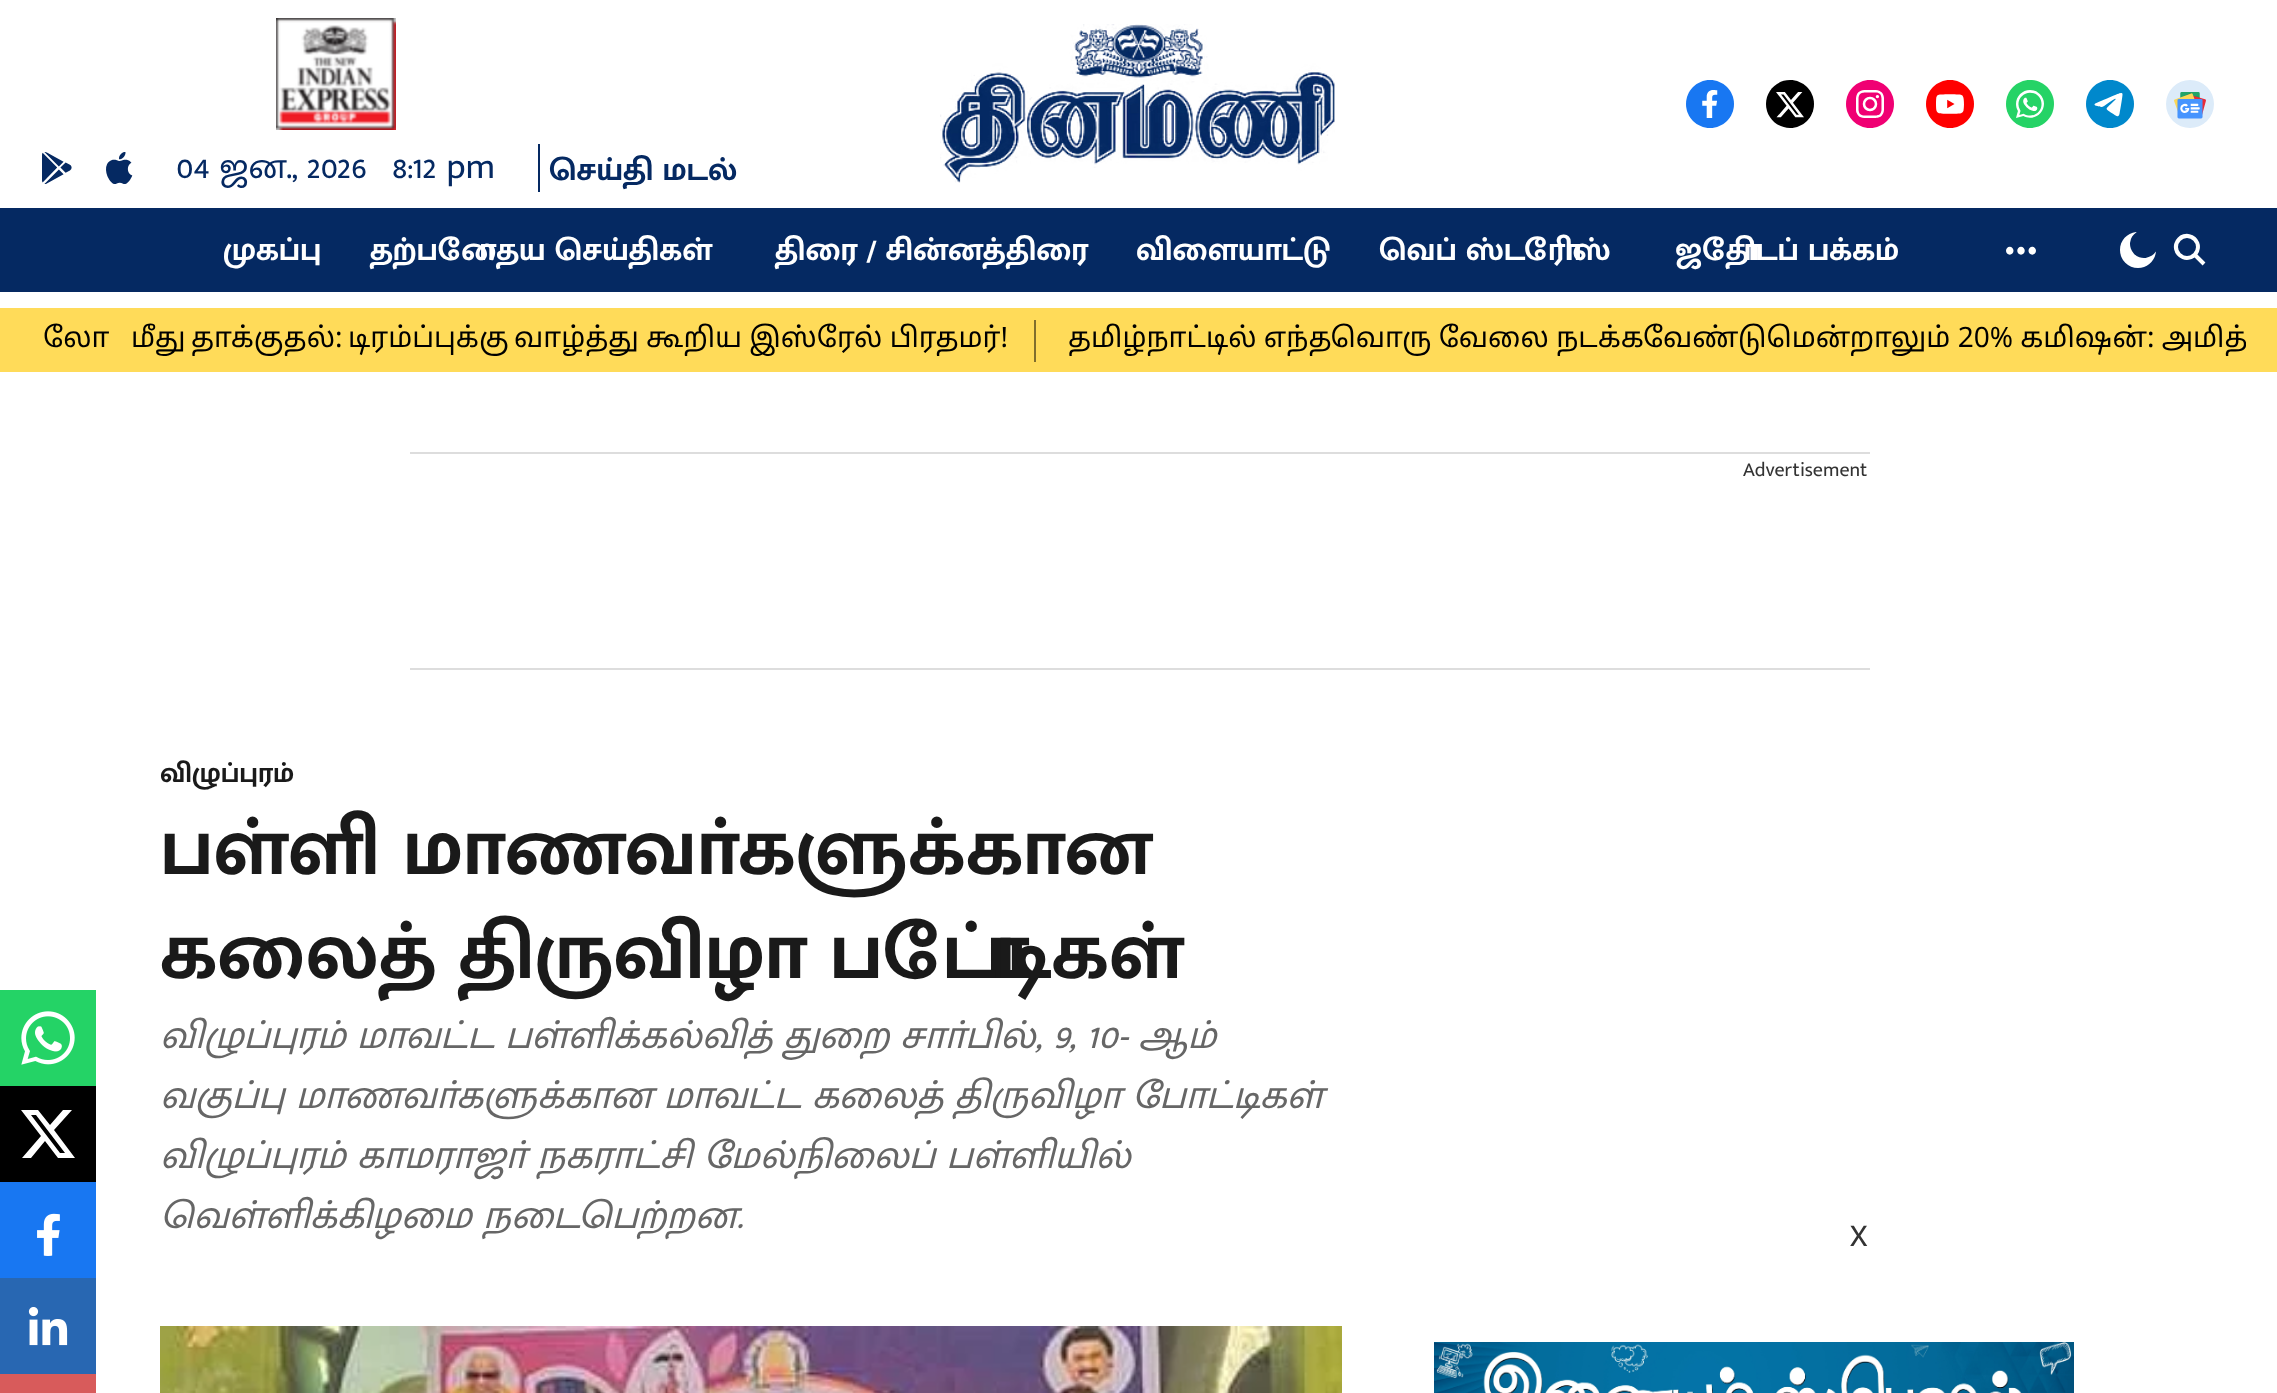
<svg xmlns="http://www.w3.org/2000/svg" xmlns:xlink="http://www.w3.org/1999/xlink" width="2277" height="1393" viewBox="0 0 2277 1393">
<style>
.cls-1{font:36px Mukta Malar;fill:#052962}
.cls-2{font:bold 32px Mukta Malar;fill:#052962}
.cls-3{font:bold 32px Mukta Malar;fill:#ffffff}
.cls-4{font:28px Noto Sans Tamil;fill:#000000}
.cls-5{font:20px Mukta Malar;fill:#333333}
.cls-6{font:bold 28px Mukta Malar;fill:#1a1a1a}
.cls-7{font:bold 80px Mukta Malar;fill:#1a1a1a}
.cls-8{font:italic 40px Mukta Malar;fill:#666666}
.cls-9{font:32px Mukta Malar;fill:#333333}
</style>
<defs>
<clipPath id="clip1"><rect x="32" y="320" width="2214" height="42"/></clipPath>
</defs>
<rect width="100%" height="100%" fill="#ffffff"/>
<image xlink:href="image0.png" x="940" y="24" width="395" height="159"/>
<image xlink:href="image1.png" x="1686" y="80" width="48" height="48"/>
<image xlink:href="image2.png" x="1766" y="80" width="48" height="48"/>
<image xlink:href="image3.png" x="1846" y="80" width="48" height="48"/>
<image xlink:href="image4.png" x="1926" y="80" width="48" height="48"/>
<image xlink:href="image5.png" x="2006" y="80" width="48" height="48"/>
<image xlink:href="image6.png" x="2086" y="80" width="48" height="48"/>
<image xlink:href="image7.png" x="2166" y="80" width="48" height="48"/>
<image xlink:href="image8.png" x="42" y="152" width="30" height="32"/>
<image xlink:href="image9.png" x="106" y="152" width="27" height="32"/>
<image xlink:href="image10.png" x="276" y="18" width="120" height="112"/>
<rect fill="#052962" x="538" y="144" width="2" height="48"/>
<rect fill="#052962" x="0" y="208" width="2277" height="84"/>
<image xlink:href="image11.png" x="2006" y="246" width="30" height="9"/>
<image xlink:href="image12.png" x="2120" y="232" width="36" height="36"/>
<image xlink:href="image13.png" x="2173" y="233" width="33" height="33"/>
<rect fill="#ffdb59" x="0" y="308" width="2277" height="64"/>
<rect fill="#806e2d" x="1034" y="320" width="2" height="42"/>
<rect fill="#dddddd" x="410" y="452" width="1460" height="2"/>
<rect fill="#dddddd" x="410" y="668" width="1460" height="2"/>
<rect fill="#24d366" x="0" y="990" width="96" height="96"/>
<image xlink:href="image14.png" x="21" y="1011" width="54" height="54"/>
<rect fill="#000000" x="0" y="1086" width="96" height="96"/>
<path fill="#ffffff" d="M63 1110H72L54 1130L75 1158H58L45 1141L31 1158H22L41 1136L21 1110H38L50 1125ZM60 1153H65L36 1115H31Z"/>
<rect fill="#1877f2" x="0" y="1182" width="96" height="96"/>
<image xlink:href="image15.png" x="37" y="1213" width="23" height="43"/>
<rect fill="#2867b2" x="0" y="1278" width="96" height="96"/>
<image xlink:href="image16.png" x="28" y="1307" width="40" height="39"/>
<rect fill="#d85b5b" x="0" y="1374" width="96" height="19"/>
<image xlink:href="image17.png" x="160" y="1326" width="1182" height="67"/>
<image xlink:href="image18.png" x="1434" y="1342" width="640" height="51"/>
<text class="cls-1" x="176" y="178">04 ஜன., 2026</text>
<text class="cls-1" x="392" y="178">8:12 pm</text>
<text class="cls-2" x="549" y="180">செய்தி மடல்</text>
<text class="cls-3" x="223" y="260">முகப்பு</text>
<text class="cls-3" x="370" y="260">தற்போதைய செய்திகள்</text>
<text class="cls-3" x="775" y="260">திரை / சின்னத்திரை</text>
<text class="cls-3" x="1136" y="260">விளையாட்டு</text>
<text class="cls-3" x="1379" y="260">வெப் ஸ்டோரிஸ்</text>
<text class="cls-3" x="1675" y="260">ஜோதிடப் பக்கம்</text>
<text class="cls-4" x="43" y="347">ேலா</text>
<text class="cls-4" x="131" y="347">மீது</text>
<text class="cls-4" x="191" y="347">தாக்குதல்:</text>
<text class="cls-4" x="348" y="347">டிரம்ப்புக்கு</text>
<text class="cls-4" x="514" y="347">வாழ்த்து கூறிய இஸ்ரேல் பிரதமர்!</text>
<g clip-path="url(#clip1)">
<text class="cls-4" x="1068" y="347">தமிழ்நாட்டில் எந்தவொரு வேலை நடக்கவேண்டுமென்றாலும் 20% கமிஷன்: அமித்</text>
</g>
<text class="cls-5" x="1743" y="476">Advertisement</text>
<text class="cls-6" x="160" y="782">விழுப்புரம்</text>
<text class="cls-7"><tspan x="160" y="874">பள்ளி மாணவா்களுக்கான</tspan><tspan x="160" y="978">கலைத் திருவிழா போட்டிகள்</tspan></text>
<text class="cls-8"><tspan x="160" y="1048" word-spacing="-0.25">விழுப்புரம் மாவட்ட பள்ளிக்கல்வித் துறை சாா்பில், 9, 10- ஆம்</tspan><tspan x="160" y="1108">வகுப்பு மாணவா்களுக்கான மாவட்ட கலைத் திருவிழா போட்டிகள்</tspan><tspan x="160" y="1168">விழுப்புரம் காமராஜா் நகராட்சி மேல்நிலைப் பள்ளியில்</tspan><tspan x="160" y="1228">வெள்ளிக்கிழமை நடைபெற்றன.</tspan></text>
<text class="cls-9" x="1850" y="1246">X</text>
</svg>
